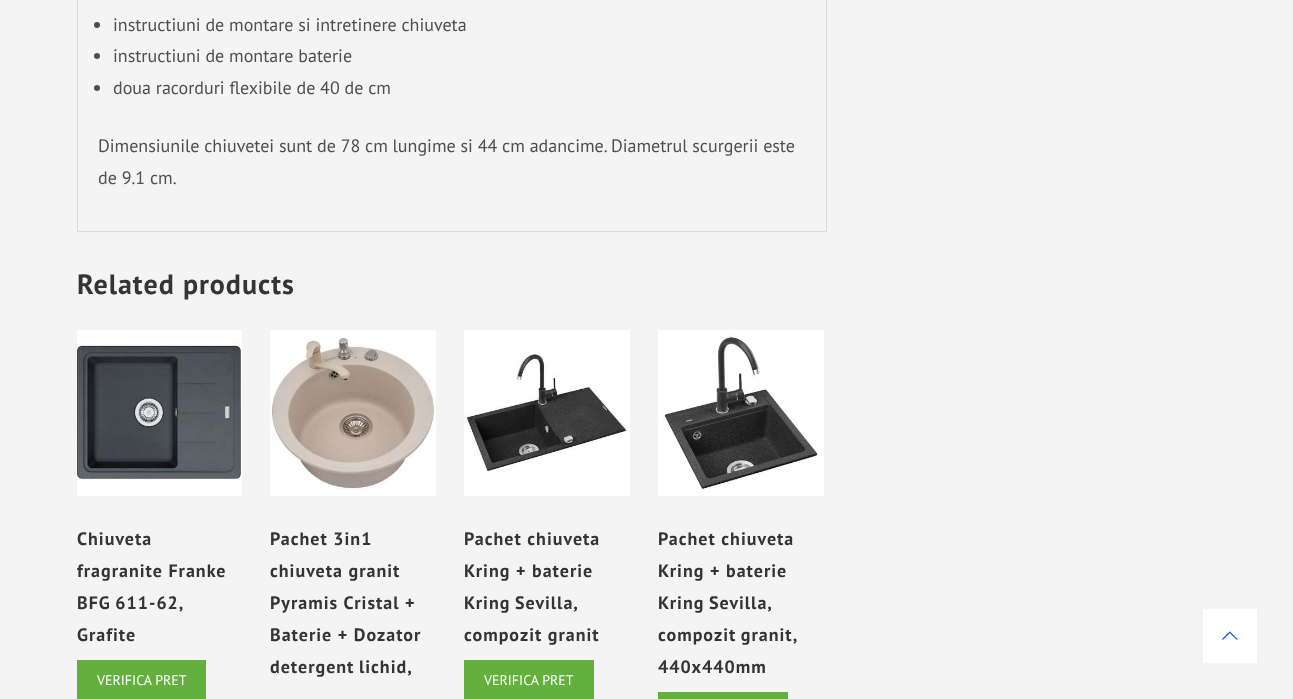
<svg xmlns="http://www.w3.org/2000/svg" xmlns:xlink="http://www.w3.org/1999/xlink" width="1293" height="699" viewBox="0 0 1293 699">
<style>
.cls-1{font:18px PT Sans;fill:#4e4e4e}
.cls-2{font:bold 28px PT Sans;letter-spacing:1px;fill:#343434}
.cls-3{font:bold 18px PT Sans;letter-spacing:1px;fill:#343434}
.cls-4{font:14px PT Sans;fill:#ffffff}
</style>
<rect width="100%" height="100%" fill="#f4f4f4"/>
<rect fill="#dcdcdc" x="826" y="0" width="1" height="232"/>
<rect fill="#dcdcdc" x="77" y="231" width="750" height="1"/>
<rect fill="#dcdcdc" x="77" y="0" width="1" height="232"/>
<circle fill="#4e4e4e" cx="97" cy="25" r="3"/>
<circle fill="#4e4e4e" cx="97" cy="56" r="3"/>
<circle fill="#4e4e4e" cx="97" cy="88" r="3"/>
<image xlink:href="image0.png" x="77" y="330" width="165" height="166"/>
<rect fill="#63b03e" x="77" y="660" width="129" height="39"/>
<image xlink:href="image1.png" x="270" y="330" width="166" height="166"/>
<image xlink:href="image2.png" x="464" y="330" width="166" height="166"/>
<rect fill="#63b03e" x="464" y="660" width="130" height="39"/>
<image xlink:href="image3.png" x="658" y="330" width="166" height="166"/>
<rect fill="#63b03e" x="658" y="692" width="130" height="7"/>
<rect fill="#ffffff" x="1203" y="609" width="54" height="54"/>
<image xlink:href="image4.png" x="1222" y="631" width="16" height="9"/>
<text class="cls-1"><tspan x="113" y="31">instructiuni de montare si intretinere chiuveta</tspan><tspan x="113" y="62">instructiuni de montare baterie</tspan><tspan x="113" y="94">doua racorduri flexibile de 40 de cm</tspan></text>
<text class="cls-1"><tspan x="98" y="152">Dimensiunile chiuvetei sunt de 78 cm lungime si 44 cm adancime. Diametrul scurgerii este</tspan><tspan x="98" y="184">de 9.1 cm.</tspan></text>
<text class="cls-2" x="77" y="294">Related products</text>
<text class="cls-3"><tspan x="77" y="545">Chiuveta</tspan><tspan x="77" y="577">fragranite Franke</tspan><tspan x="77" y="609" word-spacing="-1">BFG 611-62,</tspan><tspan x="77" y="641">Grafite</tspan></text>
<text class="cls-4" x="97" y="685">VERIFICA PRET</text>
<text class="cls-3"><tspan x="270" y="545">Pachet 3in1</tspan><tspan x="270" y="577">chiuveta granit</tspan><tspan x="270" y="609">Pyramis Cristal +</tspan><tspan x="270" y="641">Baterie + Dozator</tspan><tspan x="270" y="673" word-spacing="-1">detergent lichid,</tspan></text>
<text class="cls-3"><tspan x="464" y="545">Pachet chiuveta</tspan><tspan x="464" y="577">Kring + baterie</tspan><tspan x="464" y="609" word-spacing="-1">Kring Sevilla,</tspan><tspan x="464" y="641">compozit granit</tspan></text>
<text class="cls-4" x="484" y="685">VERIFICA PRET</text>
<text class="cls-3"><tspan x="658" y="545">Pachet chiuveta</tspan><tspan x="658" y="577">Kring + baterie</tspan><tspan x="658" y="609" word-spacing="-1">Kring Sevilla,</tspan><tspan x="658" y="641" word-spacing="-1">compozit granit,</tspan><tspan x="658" y="673">440x440mm</tspan></text>
</svg>
